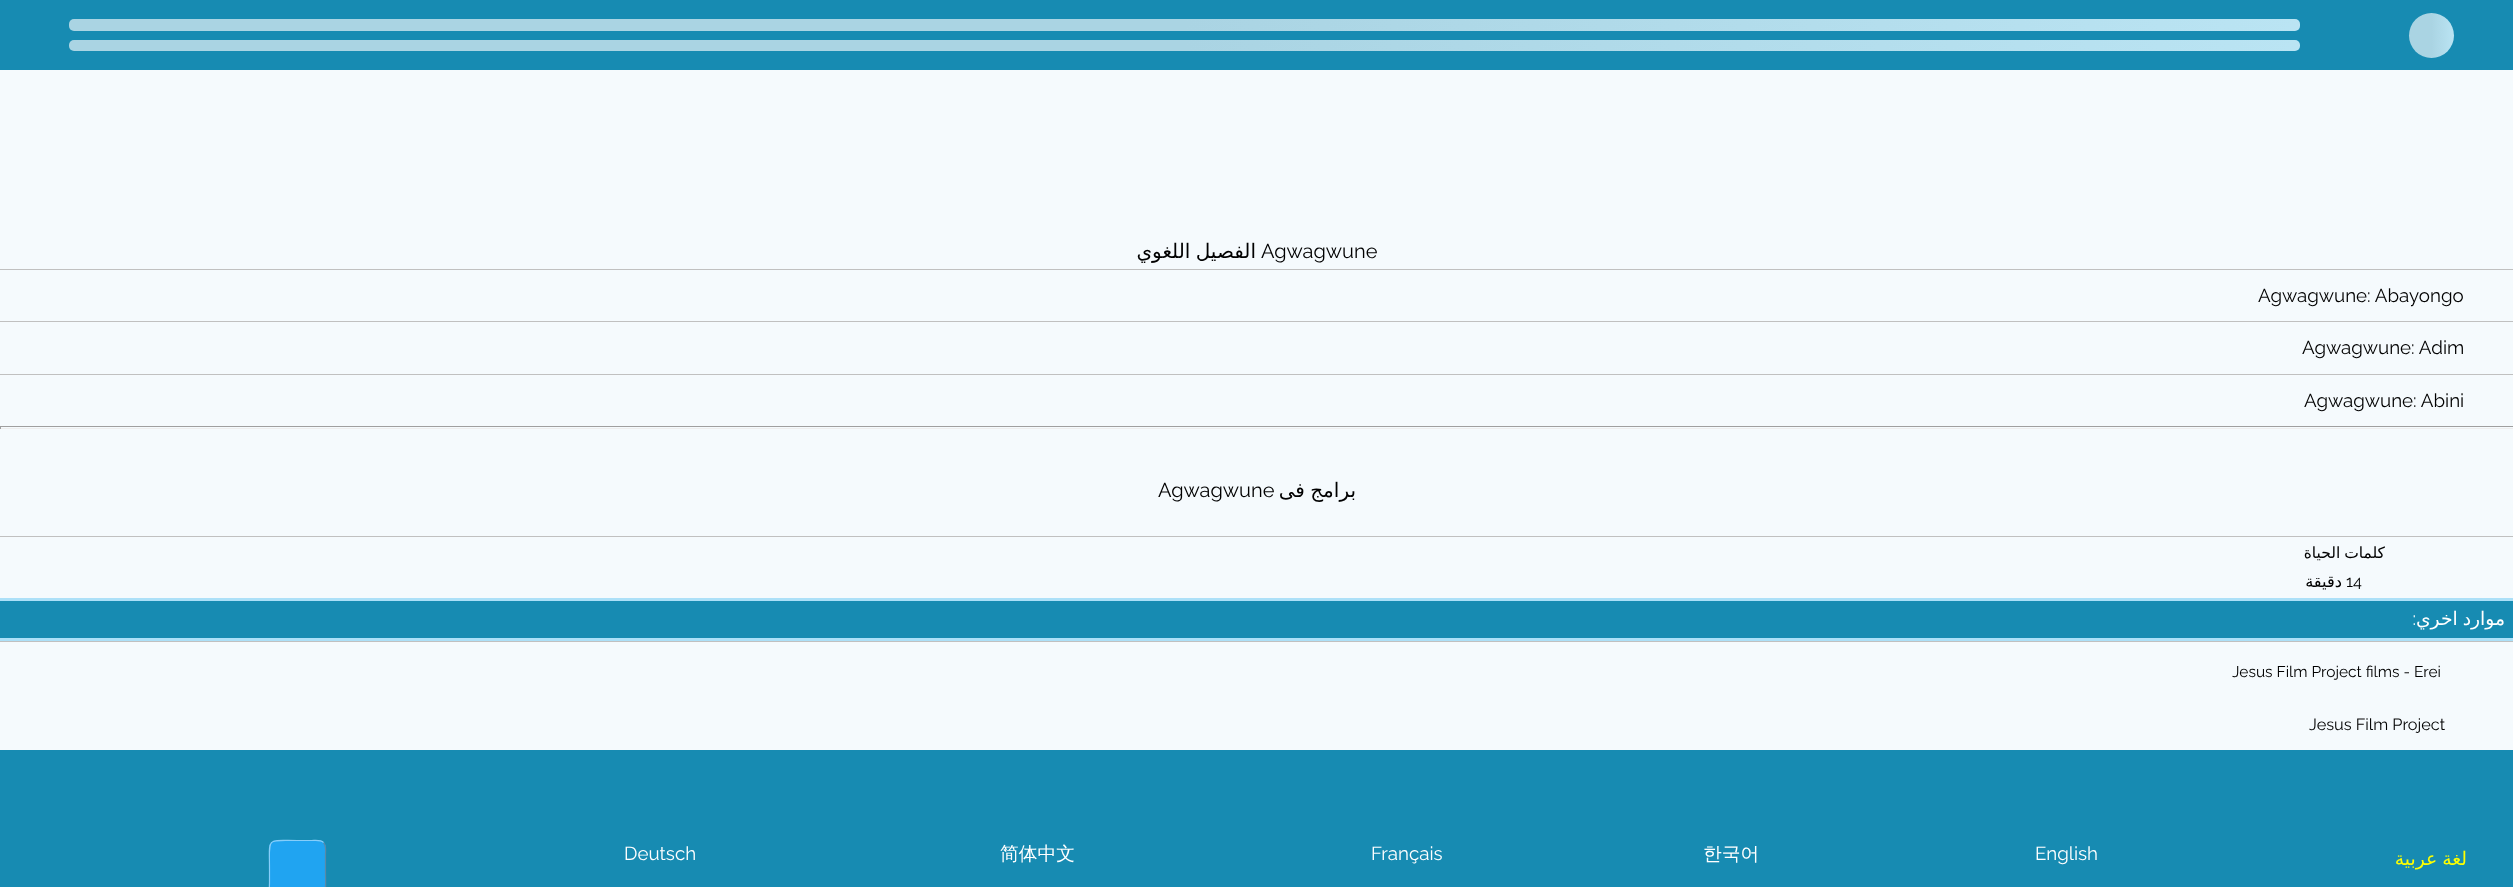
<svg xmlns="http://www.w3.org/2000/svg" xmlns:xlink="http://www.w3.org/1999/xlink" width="2513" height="887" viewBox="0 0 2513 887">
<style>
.cls-1{font:20px DejaVu Sans;direction:rtl;fill:#000000}
.cls-2{font:20px Raleway;fill:#000000}
.cls-3{font:18.75px Raleway;fill:#000000}
.cls-4{font:15.5px DejaVu Sans;direction:rtl;fill:#000000}
.cls-5{font:16.25px DejaVu Sans;direction:rtl;fill:#000000}
.cls-6{font:16.25px Raleway;fill:#000000}
.cls-7{font:18.75px Raleway;direction:rtl;fill:#ffffff}
.cls-8{font:18.75px DejaVu Sans;direction:rtl;fill:#ffffff}
.cls-9{font:15.5px Raleway;fill:#000000}
.cls-10{font:18.75px Raleway;fill:#ffffff}
.cls-11{font:500 18.75px WenQuanYi Zen Hei;fill:#ffffff}
.cls-12{font:18.75px DejaVu Sans;direction:rtl;fill:#ffff00}
</style>
<defs>
<linearGradient id="g1" gradientUnits="userSpaceOnUse" x1="69" y1="25" x2="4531" y2="25"><stop offset="0.25" stop-color="#aad4e3"/><stop offset="0.5" stop-color="#bae4f3"/><stop offset="0.75" stop-color="#aad4e3"/></linearGradient>
<linearGradient id="g2" gradientUnits="userSpaceOnUse" x1="69" y1="46" x2="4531" y2="46"><stop offset="0.25" stop-color="#aad4e3"/><stop offset="0.5" stop-color="#bae4f3"/><stop offset="0.75" stop-color="#aad4e3"/></linearGradient>
<linearGradient id="g3" gradientUnits="userSpaceOnUse" x1="2409" y1="35" x2="2499" y2="35"><stop offset="0.25" stop-color="#aad4e3"/><stop offset="0.5" stop-color="#bae4f3"/><stop offset="0.75" stop-color="#aad4e3"/></linearGradient>
</defs>
<rect width="100%" height="100%" fill="#178bb2"/>
<rect fill="url(#g1)" x="69" y="19" width="2231" height="12" rx="5"/>
<rect fill="url(#g2)" x="69" y="40" width="2231" height="11" rx="5"/>
<circle fill="url(#g3)" cx="2431.5" cy="35.5" r="22.5"/>
<rect fill="#f5fafd" x="0" y="70" width="2513" height="680"/>
<rect fill="#c0c0c0" x="0" y="269" width="2513" height="1"/>
<rect fill="#c0c0c0" x="0" y="321" width="2513" height="1"/>
<rect fill="#c0c0c0" x="0" y="374" width="2513" height="1"/>
<rect fill="#9f9f9f" x="0" y="426" width="2513" height="1"/>
<rect fill="#eeeeee" x="0" y="428" width="2513" height="1"/>
<rect fill="#9f9f9f" x="0" y="426" width="1" height="3"/>
<rect fill="#c0c0c0" x="0" y="536" width="2513" height="1"/>
<rect fill="#ace0f8" x="0" y="598" width="2513" height="3"/>
<rect fill="#178bb2" x="0" y="601" width="2513" height="37"/>
<rect fill="#ace0f8" x="0" y="638" width="2513" height="3"/>
<rect fill="#c0c0c0" x="0" y="641" width="2513" height="1"/>
<rect fill="#20a4f1" x="269" y="840" width="57" height="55" rx="8"/>
<path fill="none" stroke="#5a89a7" stroke-width="1.2" d="M323.5 842.5C326.5 845.5 325.5 851 325.5 854.5V869C325.5 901 329.5 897 297.5 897H283.5C279.5 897 274.5 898 271.5 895"/>
<path fill="none" stroke="#87cefa" stroke-width="1.2" d="M271.5 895C268.5 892 269.5 886.5 269.5 883V869C269.5 836.5 265.5 840.5 297.5 840.5H311.5C315.5 840.5 320.5 839.5 323.5 842.5"/>
<text class="cls-1" x="1256" y="258" word-spacing="-1">الفصيل اللغوي</text>
<text class="cls-2" x="1261" y="258">Agwagwune</text>
<text class="cls-3" x="2258" y="302">Agwagwune: Abayongo</text>
<text class="cls-3" x="2302" y="354">Agwagwune: Adim</text>
<text class="cls-3" x="2304" y="407">Agwagwune: Abini</text>
<text class="cls-2" x="1158" y="497">Agwagwune</text>
<text class="cls-1" x="1356" y="497" word-spacing="-1">برامج فى</text>
<text class="cls-4" x="2385" y="558" word-spacing="-1">كلمات الحياة</text>
<text class="cls-5" x="2342" y="587">دقيقة</text>
<text class="cls-6" x="2346" y="587">14</text>
<text class="cls-7" x="2416" y="625">:</text>
<text class="cls-8" x="2505" y="625" word-spacing="-1">موارد اخري</text>
<text class="cls-9" x="2232" y="677">Jesus Film Project films - Erei</text>
<text class="cls-6" x="2309" y="730">Jesus Film Project</text>
<text class="cls-10" x="624" y="860">Deutsch</text>
<text class="cls-11" x="1000" y="860">简体中文</text>
<text class="cls-10" x="1371" y="860">Français</text>
<text class="cls-11" x="1703" y="860">한국어</text>
<text class="cls-10" x="2035" y="860">English</text>
<text class="cls-12" x="2467" y="865" word-spacing="-1">لغة عربية</text>
</svg>
